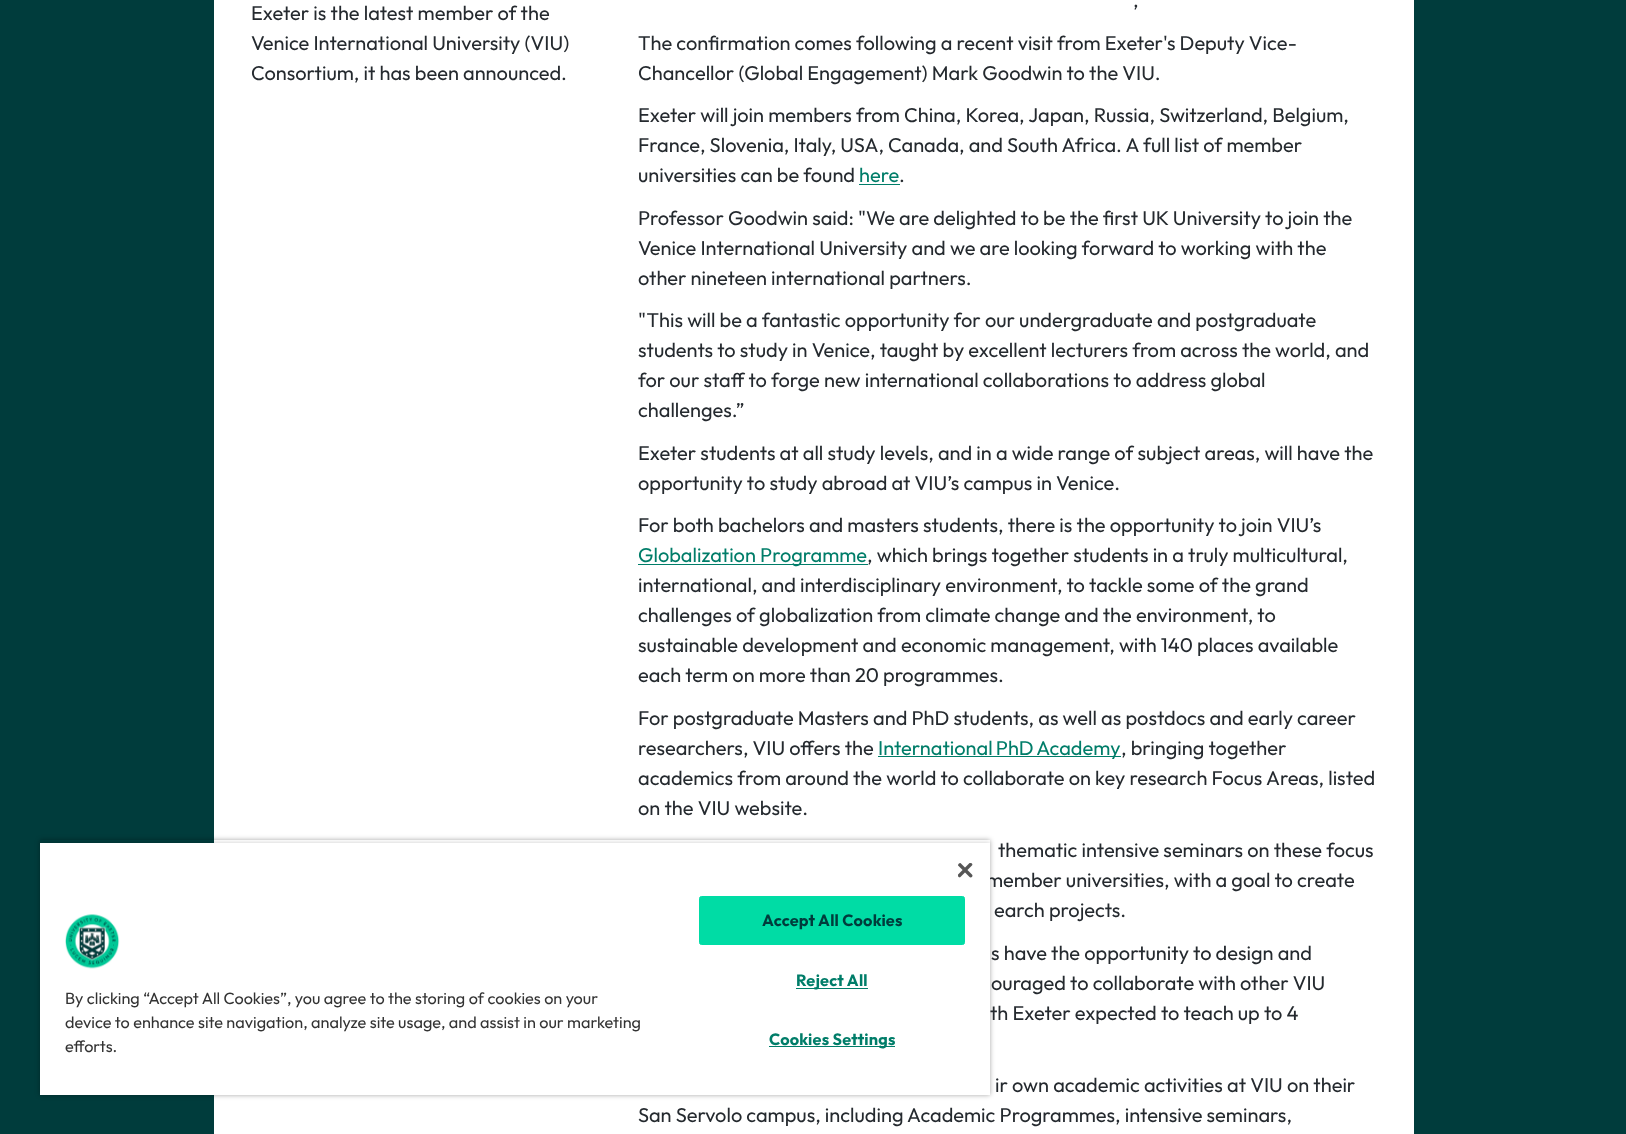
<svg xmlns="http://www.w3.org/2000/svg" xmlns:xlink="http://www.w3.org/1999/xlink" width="1626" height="1134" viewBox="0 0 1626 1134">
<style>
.cls-1{font:20px Outfit;fill:#252a2f}
.cls-2{font:20px Outfit;fill:#007d69}
.cls-3{font:16.25px Outfit;fill:#333333}
.cls-4{font:bold 16.25px Outfit;letter-spacing:0.2px;fill:#003c3c}
.cls-5{font:bold 16.25px Outfit;letter-spacing:0.2px;fill:#007d69}
</style>
<defs>
<clipPath id="clip1"><path d="M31 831H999V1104H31ZM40 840H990V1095H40Z" clip-rule="evenodd"/></clipPath>
<clipPath id="clip2"><rect x="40" y="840" width="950" height="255"/></clipPath>
</defs>
<rect width="100%" height="100%" fill="#003c3c"/>
<rect fill="#ffffff" x="214" y="0" width="1200" height="1134"/>
<rect fill="#007d69" x="859" y="184" width="41" height="1"/>
<rect fill="#007d69" x="638" y="564" width="230" height="1"/>
<rect fill="#007d69" x="878" y="756" width="243" height="1"/>
<g clip-path="url(#clip1)">
<rect fill="#000000" fill-opacity="0.35" filter="blur(2.5px)" x="40" y="840" width="950" height="255"/>
</g>
<g clip-path="url(#clip2)">
<rect fill="#000000" fill-opacity="0.2" filter="blur(2.5px)" x="40" y="843" width="950" height="252"/>
</g>
<text class="cls-1"><tspan x="251" y="20">Exeter is the latest member of the</tspan><tspan x="251" y="50">Venice International University (VIU)</tspan><tspan x="251" y="80">Consortium, it has been announced.</tspan></text>
<text class="cls-1" x="1133" y="7">,</text>
<text class="cls-1"><tspan x="638" y="50">The confirmation comes following a recent visit from Exeter's Deputy Vice-</tspan><tspan x="638" y="80">Chancellor (Global Engagement) Mark Goodwin to the VIU.</tspan></text>
<text class="cls-1"><tspan x="638" y="122">Exeter will join members from China, Korea, Japan, Russia, Switzerland, Belgium,</tspan><tspan x="638" y="152">France, Slovenia, Italy, USA, Canada, and South Africa. A full list of member</tspan><tspan x="638" y="182">universities can be found</tspan></text>
<text class="cls-2" x="859" y="182">here</text>
<text class="cls-1" x="899" y="182">.</text>
<text class="cls-1"><tspan x="638" y="225">Professor Goodwin said: "We are delighted to be the first UK University to join the</tspan><tspan x="638" y="255">Venice International University and we are looking forward to working with the</tspan><tspan x="638" y="285">other nineteen international partners.</tspan></text>
<text class="cls-1"><tspan x="638" y="327">"This will be a fantastic opportunity for our undergraduate and postgraduate</tspan><tspan x="638" y="357">students to study in Venice, taught by excellent lecturers from across the world, and</tspan><tspan x="638" y="387">for our staff to forge new international collaborations to address global</tspan><tspan x="638" y="417">challenges.”</tspan></text>
<text class="cls-1"><tspan x="638" y="460">Exeter students at all study levels, and in a wide range of subject areas, will have the</tspan><tspan x="638" y="490">opportunity to study abroad at VIU’s campus in Venice.</tspan></text>
<text class="cls-1" x="638" y="532">For both bachelors and masters students, there is the opportunity to join VIU’s</text>
<text class="cls-2" x="638" y="562">Globalization Programme</text>
<text class="cls-1" x="867" y="562">, which brings together students in a truly multicultural,</text>
<text class="cls-1"><tspan x="638" y="592">international, and interdisciplinary environment, to tackle some of the grand</tspan><tspan x="638" y="622">challenges of globalization from climate change and the environment, to</tspan><tspan x="638" y="652">sustainable development and economic management, with 140 places available</tspan><tspan x="638" y="682">each term on more than 20 programmes.</tspan></text>
<text class="cls-1"><tspan x="638" y="725">For postgraduate Masters and PhD students, as well as postdocs and early career</tspan><tspan x="638" y="755">researchers, VIU offers the</tspan></text>
<text class="cls-2" x="878" y="755" word-spacing="-1">International PhD Academy</text>
<text class="cls-1" x="1121" y="755">, bringing together</text>
<text class="cls-1"><tspan x="638" y="785">academics from around the world to collaborate on key research Focus Areas, listed</tspan><tspan x="638" y="815">on the VIU website.</tspan></text>
<text class="cls-1" x="998" y="857">thematic intensive seminars on these focus</text>
<text class="cls-1" x="986" y="887">member universities, with a goal to create</text>
<text class="cls-1" x="994" y="917">earch projects.</text>
<text class="cls-1"><tspan x="991" y="960">s have the opportunity to design and</tspan><tspan x="991" y="990">ouraged to collaborate with other VIU</tspan></text>
<text class="cls-1" x="990" y="1020">th Exeter expected to teach up to 4</text>
<text class="cls-1" x="995" y="1092">ir own academic activities at VIU on their</text>
<text class="cls-1" x="638" y="1122">San Servolo campus, including Academic Programmes, intensive seminars,</text>
<rect fill="#ffffff" x="40" y="843" width="950" height="252"/>
<image xlink:href="image0.png" x="958" y="863" width="15" height="15"/>
<image xlink:href="image1.png" x="65" y="914" width="55" height="55"/>
<text class="cls-3"><tspan x="65" y="1004">By clicking “Accept All Cookies”, you agree to the storing of cookies on your</tspan><tspan x="65" y="1028">device to enhance site navigation, analyze site usage, and assist in our marketing</tspan><tspan x="65" y="1052">efforts.</tspan></text>
<rect fill="#00dca5" stroke="#00dca5" x="699.5" y="896.5" width="265" height="48" rx="2"/>
<text class="cls-4" x="762" y="926">Accept All Cookies</text>
<rect fill="#007d69" x="796" y="988" width="72" height="1"/>
<text class="cls-5" x="796" y="986">Reject All</text>
<rect fill="#007d69" x="769" y="1046" width="126" height="1"/>
<text class="cls-5" x="769" y="1045">Cookies Settings</text>
</svg>
